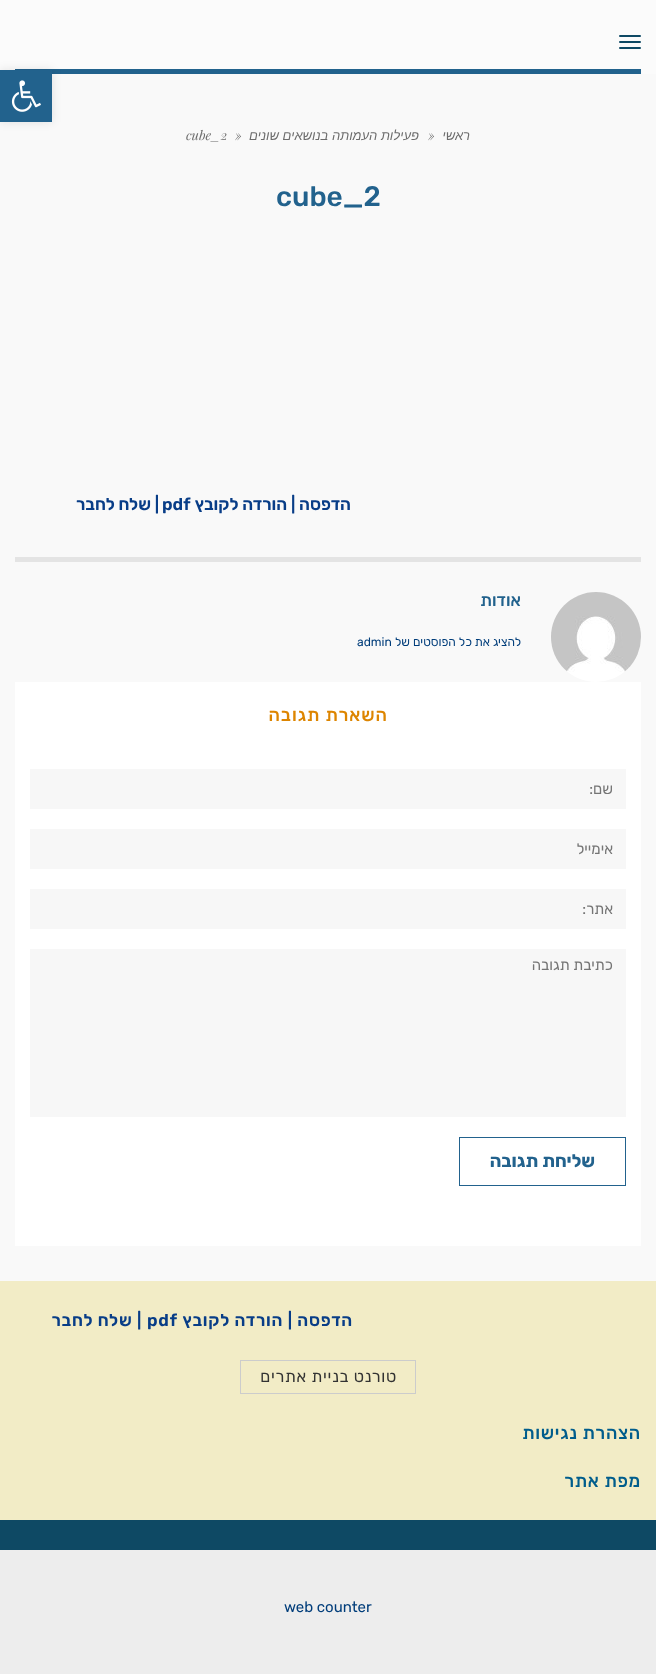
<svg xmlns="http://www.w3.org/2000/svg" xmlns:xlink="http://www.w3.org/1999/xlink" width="656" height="1674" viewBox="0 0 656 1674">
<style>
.cls-1{font:italic 13px Liberation Sans;direction:rtl;fill:#6c6c6c}
.cls-2{font:italic 13px Playfair Display;fill:#6c6c6c}
.cls-3{font:500 28px Rubik;fill:#22628d}
.cls-4{font:600 17px Rubik;direction:rtl;fill:#083d87}
.cls-5{font:600 17px Rubik;fill:#083d87}
.cls-6{font:500 17px Rubik;direction:rtl;fill:#22628d}
.cls-7{font:12.1px Rubik;direction:rtl;fill:#003d7a}
.cls-8{font:12.1px Rubik;fill:#003d7a}
.cls-9{font:500 18px Rubik;letter-spacing:1px;direction:rtl;fill:#dd8500}
.cls-10{font:15px Rubik;direction:rtl;fill:#757575}
.cls-11{font:bold 18px Rubik;direction:rtl;fill:#22628d}
.cls-12{font:600 17px Rubik;letter-spacing:0.75px;direction:rtl;fill:#083d87}
.cls-13{font:600 17px Rubik;letter-spacing:0.75px;fill:#083d87}
.cls-14{font:16.25px Rubik;letter-spacing:0.75px;direction:rtl;fill:#333333}
.cls-15{font:500 18px Rubik;letter-spacing:0.75px;direction:rtl;fill:#005d8c}
.cls-16{font:15px Rubik;fill:#003d7a}
</style>
<rect width="100%" height="100%" fill="#ededed"/>
<rect fill="#f9f9f9" x="0" y="74" width="656" height="1207"/>
<rect fill="#fbfbfb" x="0" y="0" width="656" height="74"/>
<rect fill="#22628d" x="15" y="69" width="626" height="5"/>
<rect fill="#000000" fill-opacity="0.1" filter="blur(5px)" x="0" y="70" width="52" height="52"/>
<rect fill="#22628d" x="0" y="70" width="52" height="52"/>
<image xlink:href="image0.png" x="11" y="80" width="30" height="32"/>
<rect fill="#0e4964" x="619" y="35" width="22" height="2" rx="1"/>
<rect fill="#0e4964" x="619" y="41" width="22" height="2" rx="1"/>
<rect fill="#0e4964" x="619" y="47" width="22" height="2" rx="1"/>
<rect fill="#e4e4e4" x="15" y="557" width="626" height="5"/>
<image xlink:href="image1.png" x="551" y="592" width="90" height="90"/>
<rect fill="#ffffff" x="15" y="682" width="626" height="564"/>
<rect fill="#f7f7f7" x="30" y="769" width="596" height="40"/>
<rect fill="#f7f7f7" x="30" y="829" width="596" height="40"/>
<rect fill="#f7f7f7" x="30" y="889" width="596" height="40"/>
<rect fill="#f7f7f7" x="30" y="949" width="596" height="168"/>
<rect fill="none" stroke="#22628d" x="459.5" y="1137.5" width="166" height="48"/>
<rect fill="#f2ecc6" x="0" y="1281" width="656" height="239"/>
<rect fill="none" stroke="#cccccc" x="240.5" y="1360.5" width="175" height="33"/>
<rect fill="#0e4964" x="0" y="1520" width="656" height="30"/>
<text class="cls-1" x="470" y="140">ראשי</text>
<text class="cls-2" x="428" y="140">»</text>
<text class="cls-1" x="419" y="140">פעילות העמותה בנושאים שונים</text>
<text class="cls-2" x="235" y="140">»</text>
<text class="cls-2" x="186" y="140">cube_2</text>
<text class="cls-3" x="276" y="206">cube_2</text>
<text class="cls-4" x="351" y="510">הדפסה | הורדה לקובץ</text>
<text class="cls-5" x="162" y="510">pdf</text>
<text class="cls-4" x="159" y="510">| שלח לחבר</text>
<text class="cls-6" x="521" y="606">אודות</text>
<text class="cls-7" x="521" y="646">להציג את כל הפוסטים של</text>
<text class="cls-8" x="357" y="646">admin</text>
<text class="cls-9" x="388" y="721">השארת תגובה</text>
<text class="cls-10" x="613" y="794">שם:</text>
<text class="cls-10" x="613" y="854">אימייל</text>
<text class="cls-10" x="613" y="914">אתר:</text>
<text class="cls-10" x="613" y="970">כתיבת תגובה</text>
<text class="cls-11" x="595" y="1167">שליחת תגובה</text>
<text class="cls-12" x="353" y="1326">הדפסה | הורדה לקובץ</text>
<text class="cls-13" x="147" y="1326">pdf</text>
<text class="cls-12" x="142" y="1326">| שלח לחבר</text>
<text class="cls-14" x="397" y="1382">טורנט בניית אתרים</text>
<text class="cls-15" x="641" y="1439">הצהרת נגישות</text>
<text class="cls-15" x="641" y="1487">מפת אתר</text>
<text class="cls-16" x="284" y="1612">web counter</text>
</svg>
